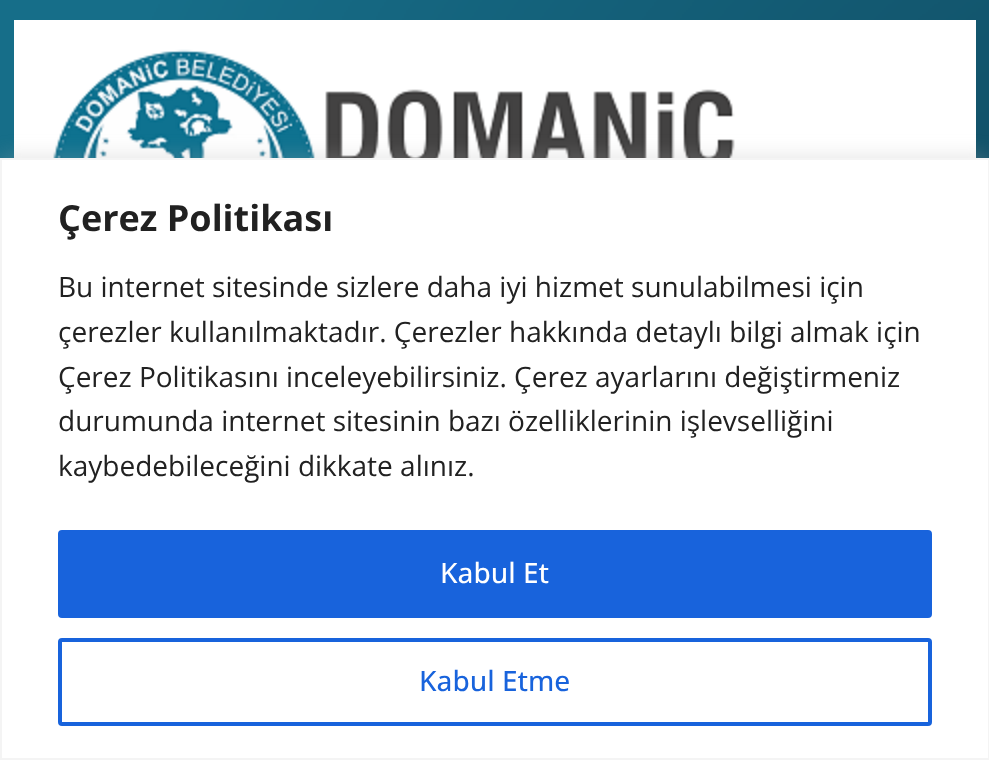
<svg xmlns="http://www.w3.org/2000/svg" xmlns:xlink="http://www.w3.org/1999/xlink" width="989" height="760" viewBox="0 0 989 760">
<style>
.cls-1{font:bold 36px Open Sans;fill:#212121}
.cls-2{font:28px Open Sans;fill:#212121}
.cls-3{font:500 28px Open Sans;fill:#ffffff}
.cls-4{font:500 28px Open Sans;fill:#1863dc}
</style>
<rect width="100%" height="100%" fill="#ffffff"/>
<image xlink:href="image0.png" x="0" y="0" width="989" height="158"/>
<rect fill="#ffffff" x="14" y="20" width="962" height="138"/>
<image xlink:href="image1.png" x="51" y="49" width="684" height="109"/>
<rect fill="#acabab" fill-opacity="0.3" filter="blur(10px)" x="0" y="156" width="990" height="602"/>
<rect fill="#ffffff" stroke="#f4f4f4" stroke-width="2" x="1" y="159" width="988" height="600"/>
<rect fill="#1863dc" stroke="#1863dc" stroke-width="4" x="60" y="532" width="870" height="84" rx="2"/>
<rect fill="none" stroke="#1863dc" stroke-width="4" x="60" y="640" width="870" height="84" rx="2"/>
<text class="cls-1" x="58" y="231">Çerez Politikası</text>
<text class="cls-2"><tspan x="58" y="297">Bu internet sitesinde sizlere daha iyi hizmet sunulabilmesi için</tspan><tspan x="58" y="342">çerezler kullanılmaktadır. Çerezler hakkında detaylı bilgi almak için</tspan><tspan x="58" y="387">Çerez Politikasını inceleyebilirsiniz. Çerez ayarlarını değiştirmeniz</tspan><tspan x="58" y="431">durumunda internet sitesinin bazı özelliklerinin işlevselliğini</tspan><tspan x="58" y="476">kaybedebileceğini dikkate alınız.</tspan></text>
<text class="cls-3" x="440" y="583">Kabul Et</text>
<text class="cls-4" x="419" y="691">Kabul Etme</text>
</svg>
